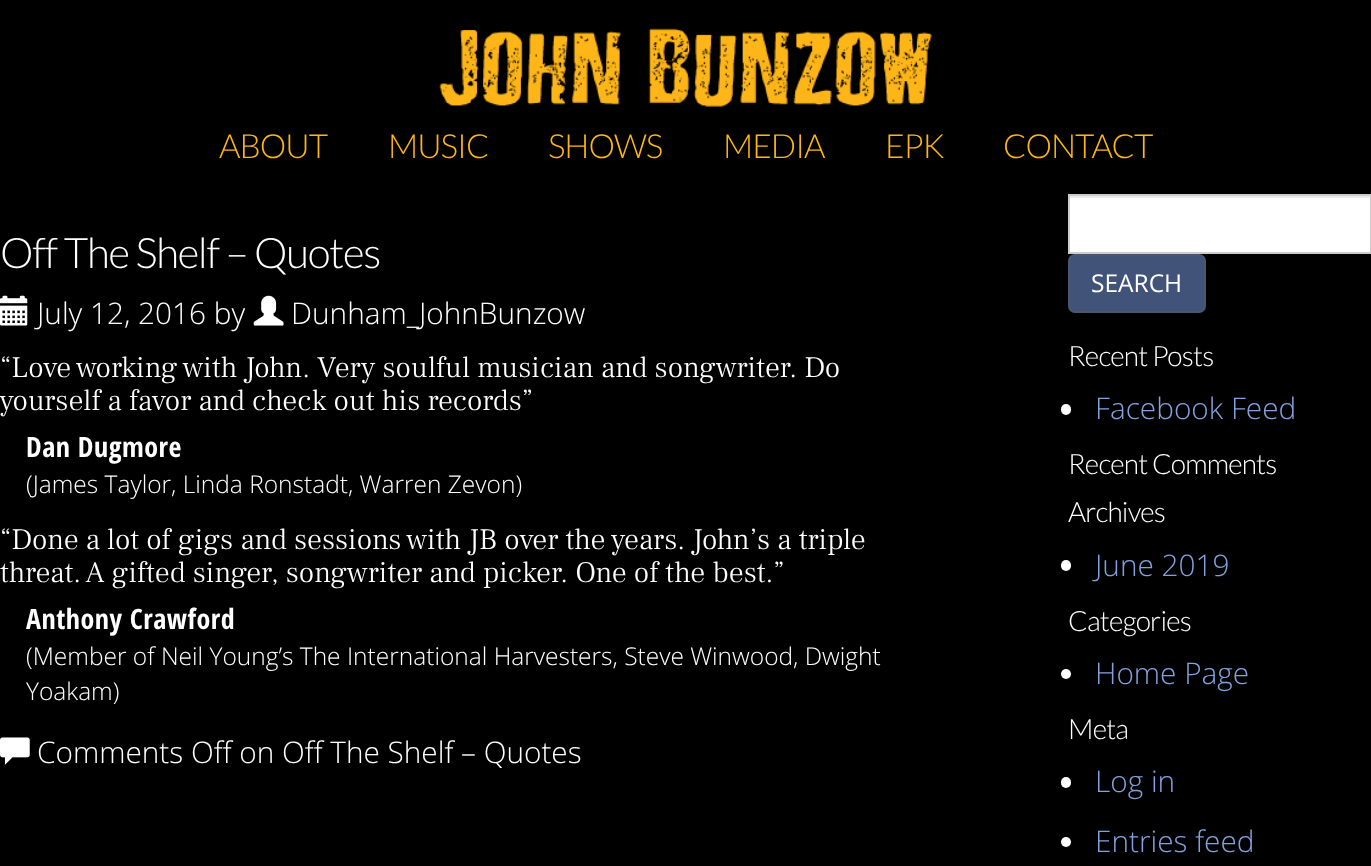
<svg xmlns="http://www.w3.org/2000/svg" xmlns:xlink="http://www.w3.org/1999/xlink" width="1371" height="866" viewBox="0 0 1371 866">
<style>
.cls-1{font:300 33.25px Lato;letter-spacing:-1px;fill:#ffb612}
.cls-2{font:300 42px Lato;letter-spacing:-1.25px;fill:#ffffff}
.cls-3{font:300 29.75px Open Sans;fill:#ffffff}
.cls-4{font:300 29.75px Frank Ruhl Libre;fill:#ffffff}
.cls-5{font:bold 28px Open Sans Condensed;letter-spacing:0.5px;fill:#ffffff}
.cls-6{font:300 24.5px Open Sans;fill:#ffffff}
.cls-7{font:24.5px Open Sans;fill:#ffffff}
.cls-8{font:300 28px Lato;letter-spacing:-0.8px;fill:#ffffff}
.cls-9{font:300 29.75px Open Sans;fill:#82a1de}
</style>
<rect width="100%" height="100%" fill="#000000"/>
<image xlink:href="image0.png" x="439" y="28" width="493" height="79"/>
<image xlink:href="image1.png" x="0" y="295" width="28" height="31"/>
<image xlink:href="image2.png" x="253" y="295" width="31" height="31"/>
<image xlink:href="image3.png" x="0" y="737" width="30" height="28"/>
<rect fill="#ffffff" x="1070" y="198" width="300" height="54"/>
<rect fill="#ececec" x="1069" y="196" width="301" height="2"/>
<rect fill="none" stroke="#cccccc" stroke-width="2" x="1069" y="195" width="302" height="58"/>
<rect fill="#415378" stroke="#4a5774" stroke-width="2" x="1069" y="255" width="136" height="57" rx="6"/>
<rect fill="#ffffff" x="1061" y="404" width="10" height="11" rx="5"/>
<rect fill="#ffffff" x="1061" y="560" width="10" height="11" rx="5"/>
<circle fill="#ffffff" cx="1066" cy="674" r="5"/>
<rect fill="#ffffff" x="1061" y="777" width="10" height="11" rx="5"/>
<circle fill="#ffffff" cx="1066" cy="842" r="5"/>
<text class="cls-1" x="219" y="158">ABOUT</text>
<text class="cls-1" x="388" y="158">MUSIC</text>
<text class="cls-1" x="548" y="158">SHOWS</text>
<text class="cls-1" x="723" y="158">MEDIA</text>
<text class="cls-1" x="885" y="158">EPK</text>
<text class="cls-1" x="1003" y="158">CONTACT</text>
<text class="cls-2" x="0" y="268">Off The Shelf – Quotes</text>
<text class="cls-3" x="37" y="324">July 12, 2016 by</text>
<text class="cls-3" x="291" y="324">Dunham_JohnBunzow</text>
<text class="cls-4"><tspan x="0" y="377">“Love working with John. Very soulful musician and songwriter. Do</tspan><tspan x="0" y="410">yourself a favor and check out his records”</tspan></text>
<text class="cls-5" x="26" y="457">Dan Dugmore</text>
<text class="cls-6" x="26" y="493">(James Taylor, Linda Ronstadt, Warren Zevon)</text>
<text class="cls-4"><tspan x="0" y="549">“Done a lot of gigs and sessions with JB over the years. John’s a triple</tspan><tspan x="0" y="582">threat. A gifted singer, songwriter and picker. One of the best.”</tspan></text>
<text class="cls-5" x="26" y="629">Anthony Crawford</text>
<text class="cls-6"><tspan x="26" y="665">(Member of Neil Young’s The International Harvesters, Steve Winwood, Dwight</tspan><tspan x="26" y="700">Yoakam)</tspan></text>
<text class="cls-3" x="37" y="763">Comments Off on Off The Shelf – Quotes</text>
<text class="cls-7" x="1091" y="292">SEARCH</text>
<text class="cls-8" x="1068" y="366">Recent Posts</text>
<text class="cls-9" x="1095" y="419">Facebook Feed</text>
<text class="cls-8"><tspan x="1068" y="474">Recent Comments</tspan><tspan x="1068" y="522">Archives</tspan></text>
<text class="cls-9" x="1095" y="576">June 2019</text>
<text class="cls-8" x="1068" y="631">Categories</text>
<text class="cls-9" x="1095" y="684">Home Page</text>
<text class="cls-8" x="1068" y="739">Meta</text>
<text class="cls-9" x="1095" y="792">Log in</text>
<text class="cls-9" x="1095" y="852">Entries feed</text>
</svg>
